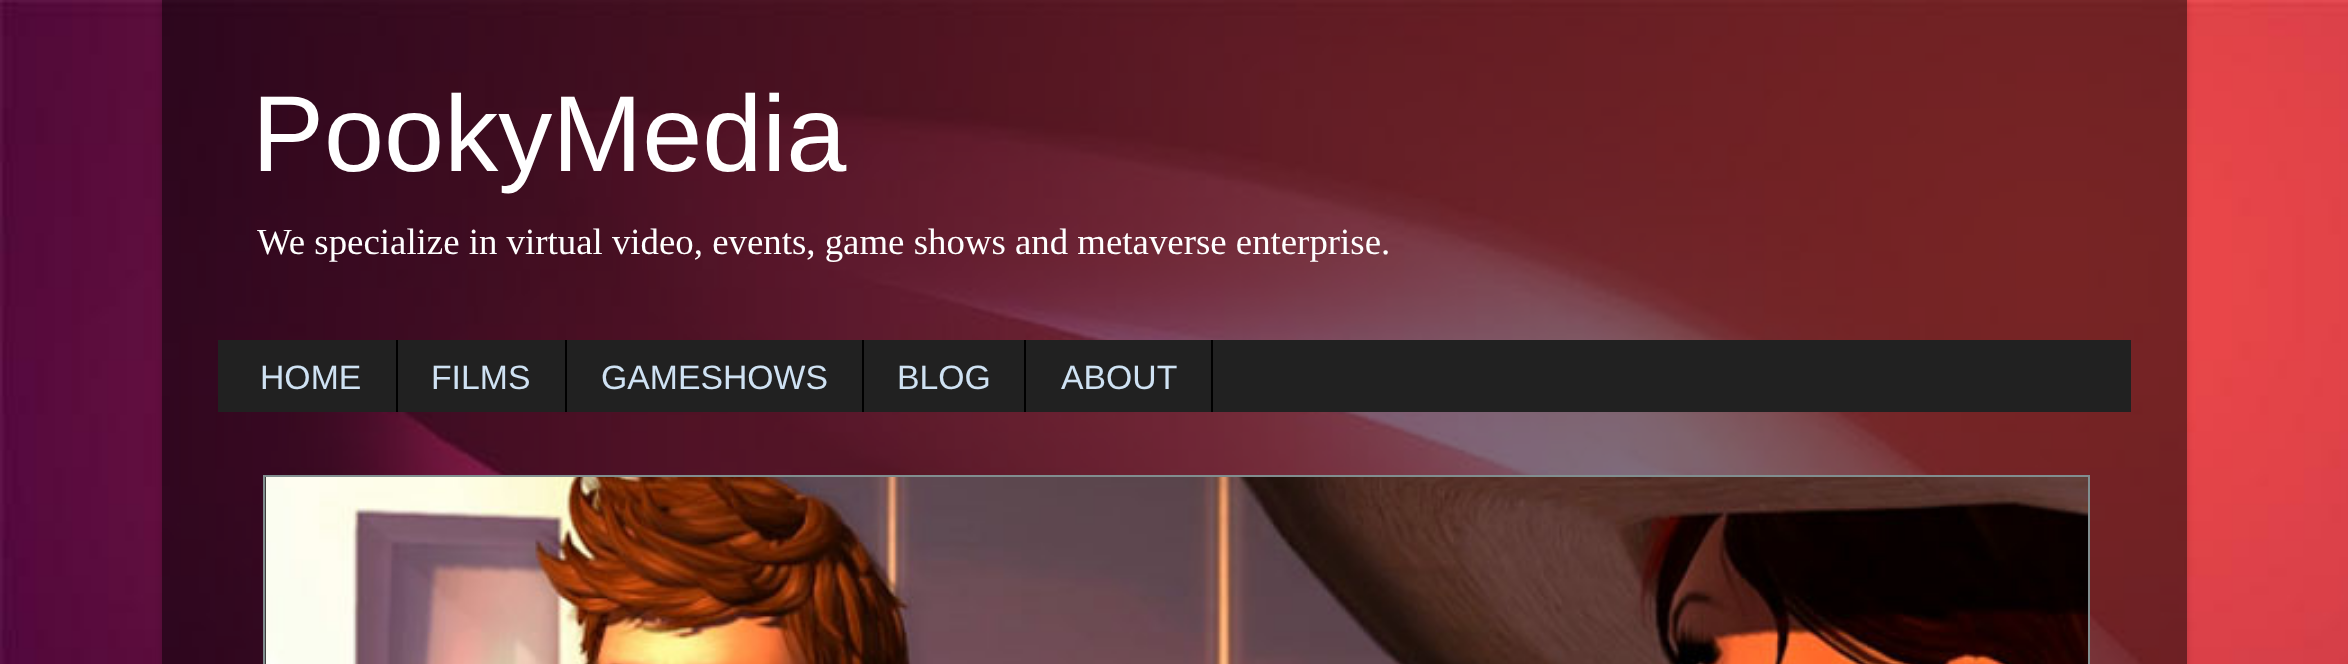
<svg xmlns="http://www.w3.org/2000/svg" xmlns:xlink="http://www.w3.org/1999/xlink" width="2348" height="664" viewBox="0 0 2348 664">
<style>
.cls-1{font:108px Liberation Sans;fill:#ffffff}
.cls-2{font:36.85px Liberation Serif;fill:#ffffff}
.cls-3{font:33.75px Liberation Sans;fill:#cfe2f3}
</style>
<defs>
<clipPath id="clip1"><path d="M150 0H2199V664H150ZM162 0H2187V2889H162Z" clip-rule="evenodd"/></clipPath>
</defs>
<rect width="100%" height="100%" fill="#ffffff"/>
<image xlink:href="image0.png" x="0" y="0" width="2348" height="664"/>
<g clip-path="url(#clip1)">
<rect fill="#000000" fill-opacity="0.15" filter="blur(3.5px)" x="162" y="0" width="2025" height="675"/>
</g>
<rect fill="#000000" fill-opacity="0.5" x="162" y="0" width="2025" height="664"/>
<rect fill="#212121" x="218" y="340" width="1913" height="72"/>
<rect fill="#000000" x="396" y="340" width="2" height="72"/>
<rect fill="#000000" x="565" y="340" width="2" height="72"/>
<rect fill="#000000" x="862" y="340" width="2" height="72"/>
<rect fill="#000000" x="1024" y="340" width="2" height="72"/>
<rect fill="#000000" x="1211" y="340" width="2" height="72"/>
<rect fill="#000000" x="265" y="477" width="1" height="187"/>
<rect fill="none" stroke="#818e8f" stroke-width="2" x="264" y="476" width="1825" height="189"/>
<image xlink:href="image1.png" x="265" y="477" width="1823" height="187"/>
<text class="cls-1" x="252" y="171">PookyMedia</text>
<text class="cls-2" x="257" y="254">We specialize in virtual video, events, game shows and metaverse enterprise.</text>
<text class="cls-3" x="260" y="389">HOME</text>
<text class="cls-3" x="431" y="389">FILMS</text>
<text class="cls-3" x="601" y="389">GAMESHOWS</text>
<text class="cls-3" x="897" y="389">BLOG</text>
<text class="cls-3" x="1061" y="389">ABOUT</text>
</svg>
